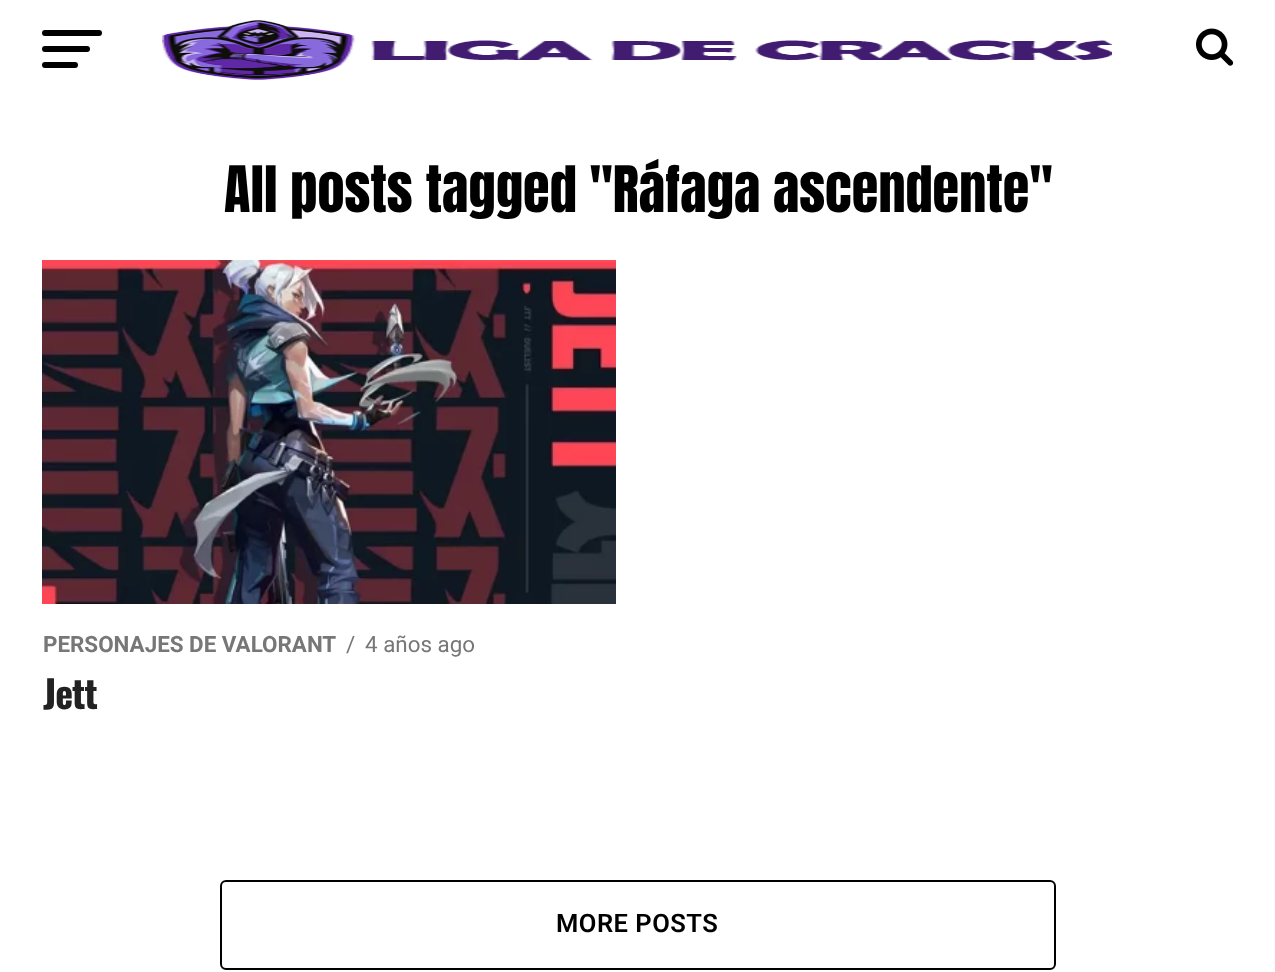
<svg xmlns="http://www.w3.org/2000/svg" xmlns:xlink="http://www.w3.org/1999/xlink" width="1275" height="972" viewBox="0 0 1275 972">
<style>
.cls-1{font:54.4px Anton;fill:#000000}
.cls-2{font:bold 22.4px Roboto;fill:#777777}
.cls-3{font:22.4px Roboto;fill:#777777}
.cls-4{font:bold 38px Oswald;letter-spacing:-1px;fill:#222222}
.cls-5{font:600 25.5px Roboto;letter-spacing:0.5px;fill:#000000}
</style>
<rect width="100%" height="100%" fill="#ffffff"/>
<rect fill="#000000" x="42" y="30" width="60" height="6" rx="3"/>
<rect fill="#000000" x="42" y="46" width="48" height="6" rx="3"/>
<rect fill="#000000" x="42" y="62" width="36" height="6" rx="3"/>
<image xlink:href="image0.png" x="162" y="20" width="950" height="60"/>
<image xlink:href="image1.png" x="1196" y="28" width="38" height="38"/>
<image xlink:href="image2.png" x="42" y="260" width="574" height="344"/>
<rect fill="none" stroke="#000000" stroke-width="2" x="221" y="881" width="834" height="88" rx="5"/>
<text class="cls-1" x="224" y="212">All posts tagged "Ráfaga ascendente"</text>
<text class="cls-2" x="43" y="652">PERSONAJES DE VALORANT</text>
<text class="cls-3" x="346" y="652">/</text>
<text class="cls-3" x="365" y="652">4 años ago</text>
<text class="cls-4" x="43" y="709">Jett</text>
<text class="cls-5" x="556" y="932">MORE POSTS</text>
</svg>
